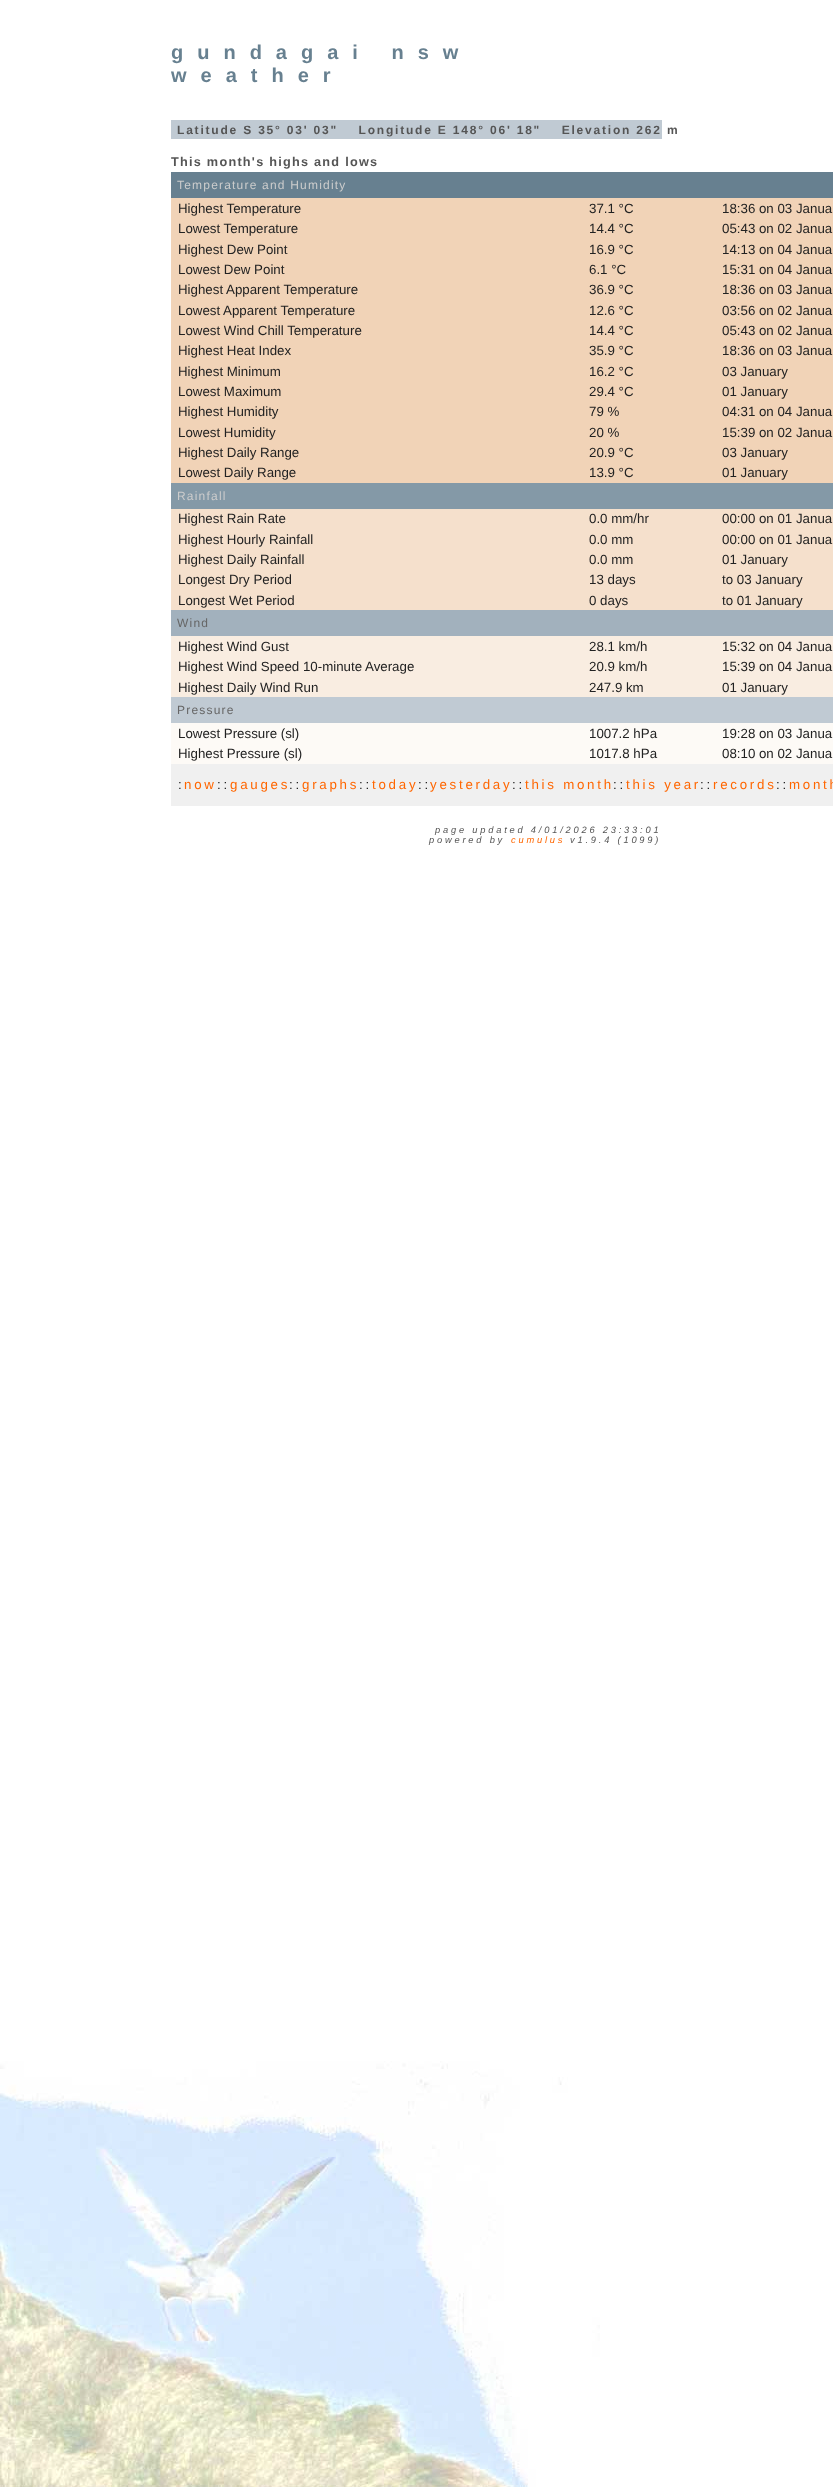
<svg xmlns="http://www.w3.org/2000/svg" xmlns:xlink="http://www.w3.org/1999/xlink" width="833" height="2487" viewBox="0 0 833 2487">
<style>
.cls-1{font:bold 20px Liberation Sans;letter-spacing:14px;fill:#678090}
.cls-2{font:bold 12px Liberation Sans;letter-spacing:1.8px;fill:#555555}
.cls-3{font:bold 12.7px Liberation Sans;letter-spacing:1.25px;fill:#555555}
.cls-4{font:12px Liberation Sans;letter-spacing:1.2px;fill:#cccccc}
.cls-5{font:13.3px Liberation Sans;fill:#222222}
.cls-6{font:12px Liberation Sans;letter-spacing:1.2px;fill:#666666}
.cls-7{font:13.3px Liberation Sans;letter-spacing:2.75px;fill:#222222}
.cls-8{font:13.3px Liberation Sans;letter-spacing:2.75px;fill:#ff6600}
.cls-9{font:italic 9.3px Liberation Sans;letter-spacing:2.8px;fill:#555555}
.cls-10{font:italic 9.3px Liberation Sans;letter-spacing:2.8px;fill:#ff6600}
</style>
<rect width="100%" height="100%" fill="#ffffff"/>
<image xlink:href="image0.png" x="0" y="2061" width="600" height="426"/>
<rect fill="#c0cad3" x="171" y="120" width="491" height="19"/>
<rect fill="#678090" x="171" y="172" width="662" height="26"/>
<rect fill="#f1d3b7" x="171" y="198" width="662" height="285"/>
<rect fill="#8499a7" x="171" y="483" width="662" height="26"/>
<rect fill="#f5e0cc" x="171" y="509" width="662" height="101"/>
<rect fill="#a2b1bd" x="171" y="610" width="662" height="26"/>
<rect fill="#f9ede1" x="171" y="636" width="662" height="61"/>
<rect fill="#c0cad3" x="171" y="697" width="662" height="26"/>
<rect fill="#fdfaf6" x="171" y="723" width="662" height="41"/>
<rect fill="#f0f0f0" x="171" y="764" width="662" height="42"/>
<text class="cls-1"><tspan x="171" y="59">gundagai nsw</tspan><tspan x="171" y="82">weather</tspan></text>
<text class="cls-2" xml:space="preserve" x="177" y="134">Latitude S 35° 03' 03"    Longitude E 148° 06' 18"    Elevation 262 m</text>
<text class="cls-3" x="171" y="166">This month's highs and lows</text>
<text class="cls-4" x="177" y="189">Temperature and Humidity</text>
<text class="cls-5" x="178" y="213">Highest Temperature</text>
<text class="cls-5" x="589" y="213">37.1 °C</text>
<text class="cls-5" x="722" y="213">18:36 on 03 Janua</text>
<text class="cls-5" x="178" y="233">Lowest Temperature</text>
<text class="cls-5" x="589" y="233">14.4 °C</text>
<text class="cls-5" x="722" y="233">05:43 on 02 Janua</text>
<text class="cls-5" x="178" y="254">Highest Dew Point</text>
<text class="cls-5" x="589" y="254">16.9 °C</text>
<text class="cls-5" x="722" y="254">14:13 on 04 Janua</text>
<text class="cls-5" x="178" y="274">Lowest Dew Point</text>
<text class="cls-5" x="589" y="274">6.1 °C</text>
<text class="cls-5" x="722" y="274">15:31 on 04 Janua</text>
<text class="cls-5" x="178" y="294">Highest Apparent Temperature</text>
<text class="cls-5" x="589" y="294">36.9 °C</text>
<text class="cls-5" x="722" y="294">18:36 on 03 Janua</text>
<text class="cls-5" x="178" y="315">Lowest Apparent Temperature</text>
<text class="cls-5" x="589" y="315">12.6 °C</text>
<text class="cls-5" x="722" y="315">03:56 on 02 Janua</text>
<text class="cls-5" x="178" y="335">Lowest Wind Chill Temperature</text>
<text class="cls-5" x="589" y="335">14.4 °C</text>
<text class="cls-5" x="722" y="335">05:43 on 02 Janua</text>
<text class="cls-5" x="178" y="355">Highest Heat Index</text>
<text class="cls-5" x="589" y="355">35.9 °C</text>
<text class="cls-5" x="722" y="355">18:36 on 03 Janua</text>
<text class="cls-5" x="178" y="376">Highest Minimum</text>
<text class="cls-5" x="589" y="376">16.2 °C</text>
<text class="cls-5" x="722" y="376">03 January</text>
<text class="cls-5" x="178" y="396">Lowest Maximum</text>
<text class="cls-5" x="589" y="396">29.4 °C</text>
<text class="cls-5" x="722" y="396">01 January</text>
<text class="cls-5" x="178" y="416">Highest Humidity</text>
<text class="cls-5" x="589" y="416">79 %</text>
<text class="cls-5" x="722" y="416">04:31 on 04 Janua</text>
<text class="cls-5" x="178" y="437">Lowest Humidity</text>
<text class="cls-5" x="589" y="437">20 %</text>
<text class="cls-5" x="722" y="437">15:39 on 02 Janua</text>
<text class="cls-5" x="178" y="457">Highest Daily Range</text>
<text class="cls-5" x="589" y="457">20.9 °C</text>
<text class="cls-5" x="722" y="457">03 January</text>
<text class="cls-5" x="178" y="477">Lowest Daily Range</text>
<text class="cls-5" x="589" y="477">13.9 °C</text>
<text class="cls-5" x="722" y="477">01 January</text>
<text class="cls-4" x="177" y="500">Rainfall</text>
<text class="cls-5" x="178" y="523">Highest Rain Rate</text>
<text class="cls-5" x="589" y="523">0.0 mm/hr</text>
<text class="cls-5" x="722" y="523">00:00 on 01 Janua</text>
<text class="cls-5" x="178" y="544">Highest Hourly Rainfall</text>
<text class="cls-5" x="589" y="544">0.0 mm</text>
<text class="cls-5" x="722" y="544">00:00 on 01 Janua</text>
<text class="cls-5" x="178" y="564">Highest Daily Rainfall</text>
<text class="cls-5" x="589" y="564">0.0 mm</text>
<text class="cls-5" x="722" y="564">01 January</text>
<text class="cls-5" x="178" y="584">Longest Dry Period</text>
<text class="cls-5" x="589" y="584">13 days</text>
<text class="cls-5" x="722" y="584">to 03 January</text>
<text class="cls-5" x="178" y="605">Longest Wet Period</text>
<text class="cls-5" x="589" y="605">0 days</text>
<text class="cls-5" x="722" y="605">to 01 January</text>
<text class="cls-6" x="177" y="627">Wind</text>
<text class="cls-5" x="178" y="651">Highest Wind Gust</text>
<text class="cls-5" x="589" y="651">28.1 km/h</text>
<text class="cls-5" x="722" y="651">15:32 on 04 Janua</text>
<text class="cls-5" x="178" y="671">Highest Wind Speed 10-minute Average</text>
<text class="cls-5" x="589" y="671">20.9 km/h</text>
<text class="cls-5" x="722" y="671">15:39 on 04 Janua</text>
<text class="cls-5" x="178" y="692">Highest Daily Wind Run</text>
<text class="cls-5" x="589" y="692">247.9 km</text>
<text class="cls-5" x="722" y="692">01 January</text>
<text class="cls-6" x="177" y="714">Pressure</text>
<text class="cls-5" x="178" y="738">Lowest Pressure (sl)</text>
<text class="cls-5" x="589" y="738">1007.2 hPa</text>
<text class="cls-5" x="722" y="738">19:28 on 03 Janua</text>
<text class="cls-5" x="178" y="758">Highest Pressure (sl)</text>
<text class="cls-5" x="589" y="758">1017.8 hPa</text>
<text class="cls-5" x="722" y="758">08:10 on 02 Janua</text>
<text class="cls-7" x="178" y="789">:</text>
<text class="cls-8" x="184" y="789">now</text>
<text class="cls-7" x="217" y="789">::</text>
<text class="cls-8" x="230" y="789">gauges</text>
<text class="cls-7" x="289" y="789">::</text>
<text class="cls-8" x="302" y="789">graphs</text>
<text class="cls-7" x="359" y="789">::</text>
<text class="cls-8" x="372" y="789">today</text>
<text class="cls-7" x="418" y="789">::</text>
<text class="cls-8" x="430" y="789">yesterday</text>
<text class="cls-7" x="512" y="789">::</text>
<text class="cls-8" x="525" y="789">this month</text>
<text class="cls-7" x="613" y="789">::</text>
<text class="cls-8" x="626" y="789">this year</text>
<text class="cls-7" x="700" y="789">::</text>
<text class="cls-8" x="713" y="789">records</text>
<text class="cls-7" x="776" y="789">::</text>
<text class="cls-8" x="789" y="789">month</text>
<text class="cls-9" x="435" y="833">page updated 4/01/2026 23:33:01</text>
<text class="cls-9" x="429" y="843">powered by</text>
<text class="cls-10" x="511" y="843">cumulus</text>
<text class="cls-9" x="570" y="843">v1.9.4 (1099)</text>
</svg>
